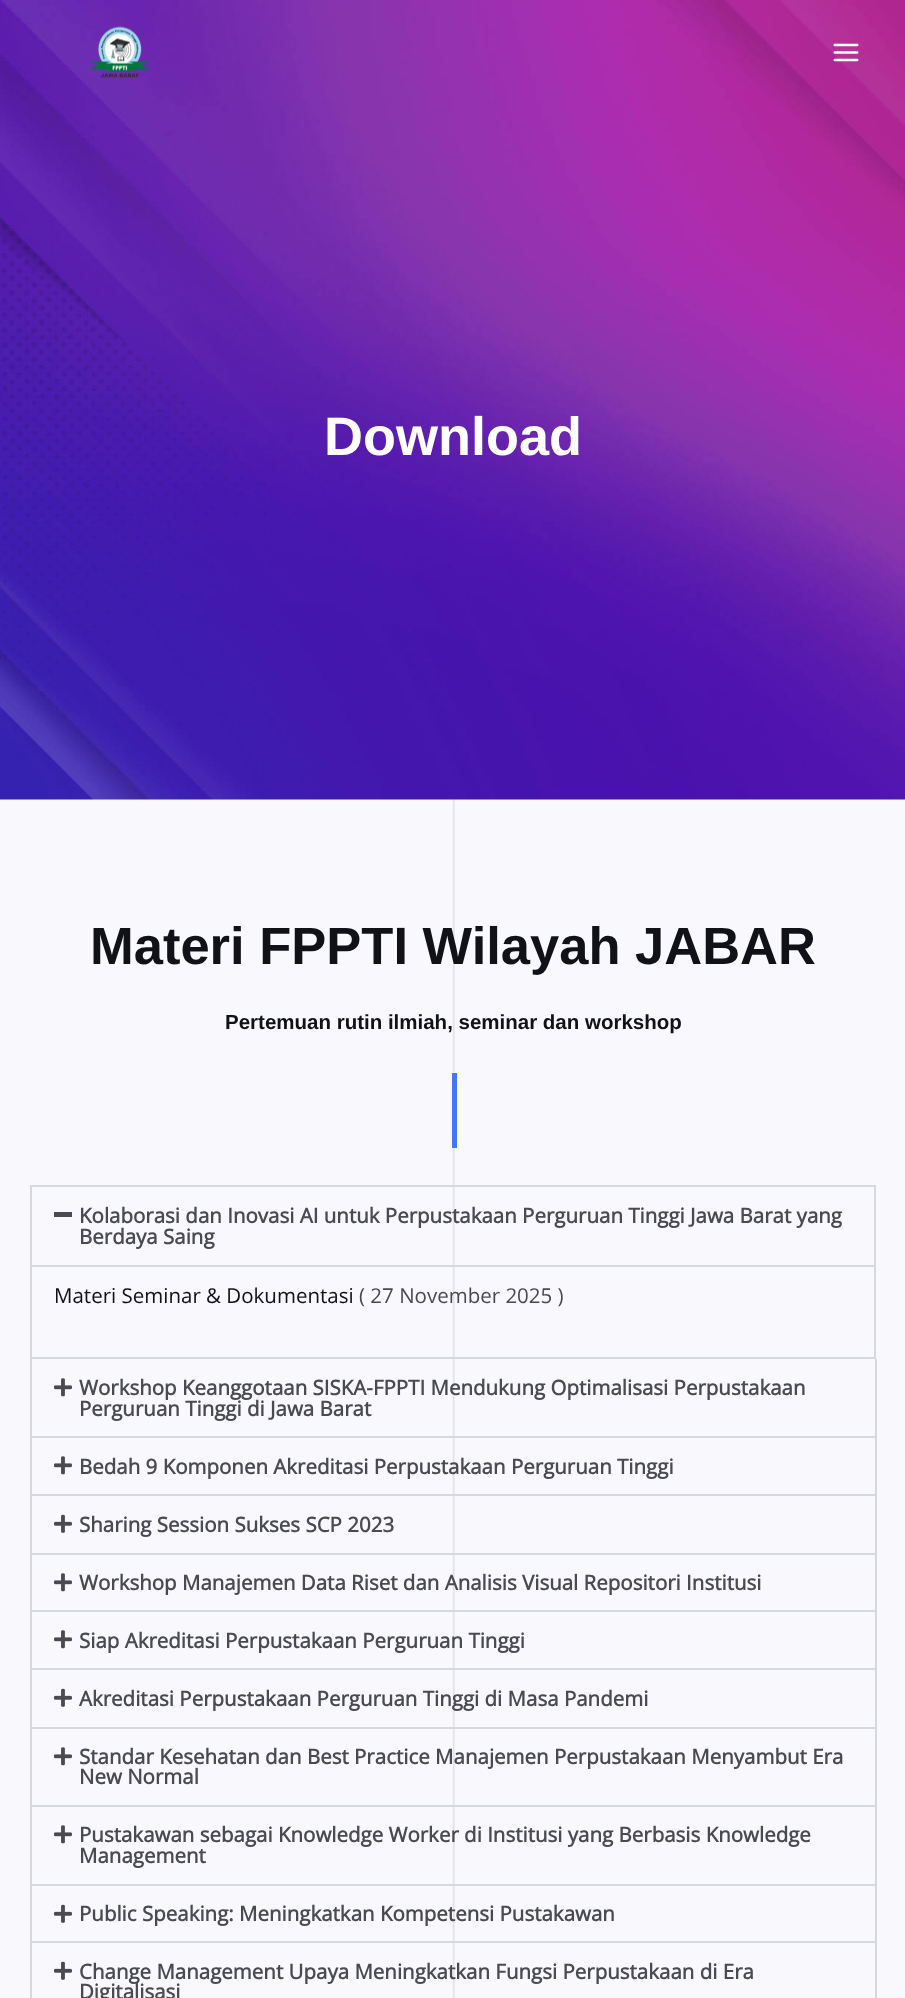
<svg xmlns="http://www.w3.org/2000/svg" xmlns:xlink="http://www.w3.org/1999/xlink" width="905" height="1998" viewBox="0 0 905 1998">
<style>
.cls-1{font:bold 54px Liberation Sans;fill:#ffffff}
.cls-2{font:bold 52.5px Liberation Sans;fill:#101218}
.cls-3{font:bold 20.5px Liberation Sans;fill:#101218}
.cls-4{font:bold 20.5px Open Sans;fill:#494b51}
.cls-5{font:20.5px Open Sans;fill:#101218}
.cls-6{font:20.5px Open Sans;fill:#494b51}
</style>
<rect width="100%" height="100%" fill="#ffffff"/>
<image xlink:href="image0.png" x="0" y="799" width="905" height="1199"/>
<image xlink:href="image3.png" x="0" y="0" width="905" height="800"/>
<image xlink:href="image1.png" x="90" y="26" width="60" height="52"/>
<image xlink:href="image2.png" x="833" y="43" width="26" height="19"/>
<rect fill="#4175fc" x="452" y="1073" width="5" height="75"/>
<rect fill="none" stroke="#d5d8dc" stroke-width="2" x="31" y="1186" width="844" height="172"/>
<rect fill="#494b51" x="54" y="1212" width="18" height="5"/>
<rect fill="#d5d8dc" x="32" y="1265" width="843" height="2"/>
<rect fill="#d5d8dc" x="875" y="1359" width="2" height="78"/>
<rect fill="#d5d8dc" x="30" y="1436" width="846" height="2"/>
<rect fill="#d5d8dc" x="30" y="1359" width="2" height="78"/>
<image xlink:href="image4.png" x="54" y="1378" width="18" height="19"/>
<rect fill="#d5d8dc" x="875" y="1437" width="2" height="117"/>
<rect fill="#d5d8dc" x="30" y="1494" width="846" height="2"/>
<rect fill="#d5d8dc" x="30" y="1437" width="2" height="59"/>
<image xlink:href="image4.png" x="54" y="1456" width="18" height="19"/>
<rect fill="#d5d8dc" x="30" y="1553" width="846" height="2"/>
<rect fill="#d5d8dc" x="30" y="1496" width="2" height="58"/>
<image xlink:href="image5.png" x="54" y="1514" width="18" height="19"/>
<rect fill="#d5d8dc" x="875" y="1554" width="2" height="57"/>
<rect fill="#d5d8dc" x="30" y="1610" width="846" height="2"/>
<rect fill="#d5d8dc" x="30" y="1554" width="2" height="57"/>
<image xlink:href="image4.png" x="54" y="1573" width="18" height="19"/>
<rect fill="#d5d8dc" x="875" y="1611" width="2" height="117"/>
<rect fill="#d5d8dc" x="30" y="1668" width="846" height="2"/>
<rect fill="#d5d8dc" x="30" y="1611" width="2" height="59"/>
<image xlink:href="image4.png" x="54" y="1630" width="18" height="19"/>
<rect fill="#d5d8dc" x="30" y="1727" width="846" height="2"/>
<rect fill="#d5d8dc" x="30" y="1670" width="2" height="58"/>
<image xlink:href="image5.png" x="54" y="1688" width="18" height="19"/>
<rect fill="#d5d8dc" x="875" y="1728" width="2" height="78"/>
<rect fill="#d5d8dc" x="30" y="1805" width="846" height="2"/>
<rect fill="#d5d8dc" x="30" y="1728" width="2" height="78"/>
<image xlink:href="image4.png" x="54" y="1747" width="18" height="19"/>
<rect fill="#d5d8dc" x="875" y="1806" width="2" height="192"/>
<rect fill="#d5d8dc" x="30" y="1884" width="846" height="2"/>
<rect fill="#d5d8dc" x="30" y="1806" width="2" height="80"/>
<image xlink:href="image4.png" x="54" y="1825" width="18" height="19"/>
<rect fill="#d5d8dc" x="30" y="1941" width="846" height="2"/>
<rect fill="#d5d8dc" x="30" y="1886" width="2" height="112"/>
<image xlink:href="image5.png" x="54" y="1904" width="18" height="19"/>
<image xlink:href="image5.png" x="54" y="1961" width="18" height="19"/>
<text class="cls-1" x="324" y="455">Download</text>
<text class="cls-2" x="90" y="964">Materi FPPTI Wilayah JABAR</text>
<text class="cls-3" x="225" y="1029">Pertemuan rutin ilmiah, seminar dan workshop</text>
<text class="cls-4"><tspan x="79" y="1223">Kolaborasi dan Inovasi AI untuk Perpustakaan Perguruan Tinggi Jawa Barat yang</tspan><tspan x="79" y="1244">Berdaya Saing</tspan></text>
<text class="cls-5" x="54" y="1303">Materi Seminar &amp; Dokumentasi</text>
<text class="cls-6" x="359" y="1303">( 27 November 2025 )</text>
<text class="cls-4"><tspan x="79" y="1395">Workshop Keanggotaan SISKA-FPPTI Mendukung Optimalisasi Perpustakaan</tspan><tspan x="79" y="1416">Perguruan Tinggi di Jawa Barat</tspan></text>
<text class="cls-4" x="79" y="1474">Bedah 9 Komponen Akreditasi Perpustakaan Perguruan Tinggi</text>
<text class="cls-4" x="79" y="1532">Sharing Session Sukses SCP 2023</text>
<text class="cls-4" x="79" y="1590">Workshop Manajemen Data Riset dan Analisis Visual Repositori Institusi</text>
<text class="cls-4" x="79" y="1648">Siap Akreditasi Perpustakaan Perguruan Tinggi</text>
<text class="cls-4" x="79" y="1706">Akreditasi Perpustakaan Perguruan Tinggi di Masa Pandemi</text>
<text class="cls-4"><tspan x="79" y="1764">Standar Kesehatan dan Best Practice Manajemen Perpustakaan Menyambut Era</tspan><tspan x="79" y="1784">New Normal</tspan></text>
<text class="cls-4"><tspan x="79" y="1842">Pustakawan sebagai Knowledge Worker di Institusi yang Berbasis Knowledge</tspan><tspan x="79" y="1863">Management</tspan></text>
<text class="cls-4" x="79" y="1921">Public Speaking: Meningkatkan Kompetensi Pustakawan</text>
<text class="cls-4"><tspan x="79" y="1979">Change Management Upaya Meningkatkan Fungsi Perpustakaan di Era</tspan><tspan x="79" y="1999">Digitalisasi</tspan></text>
</svg>
